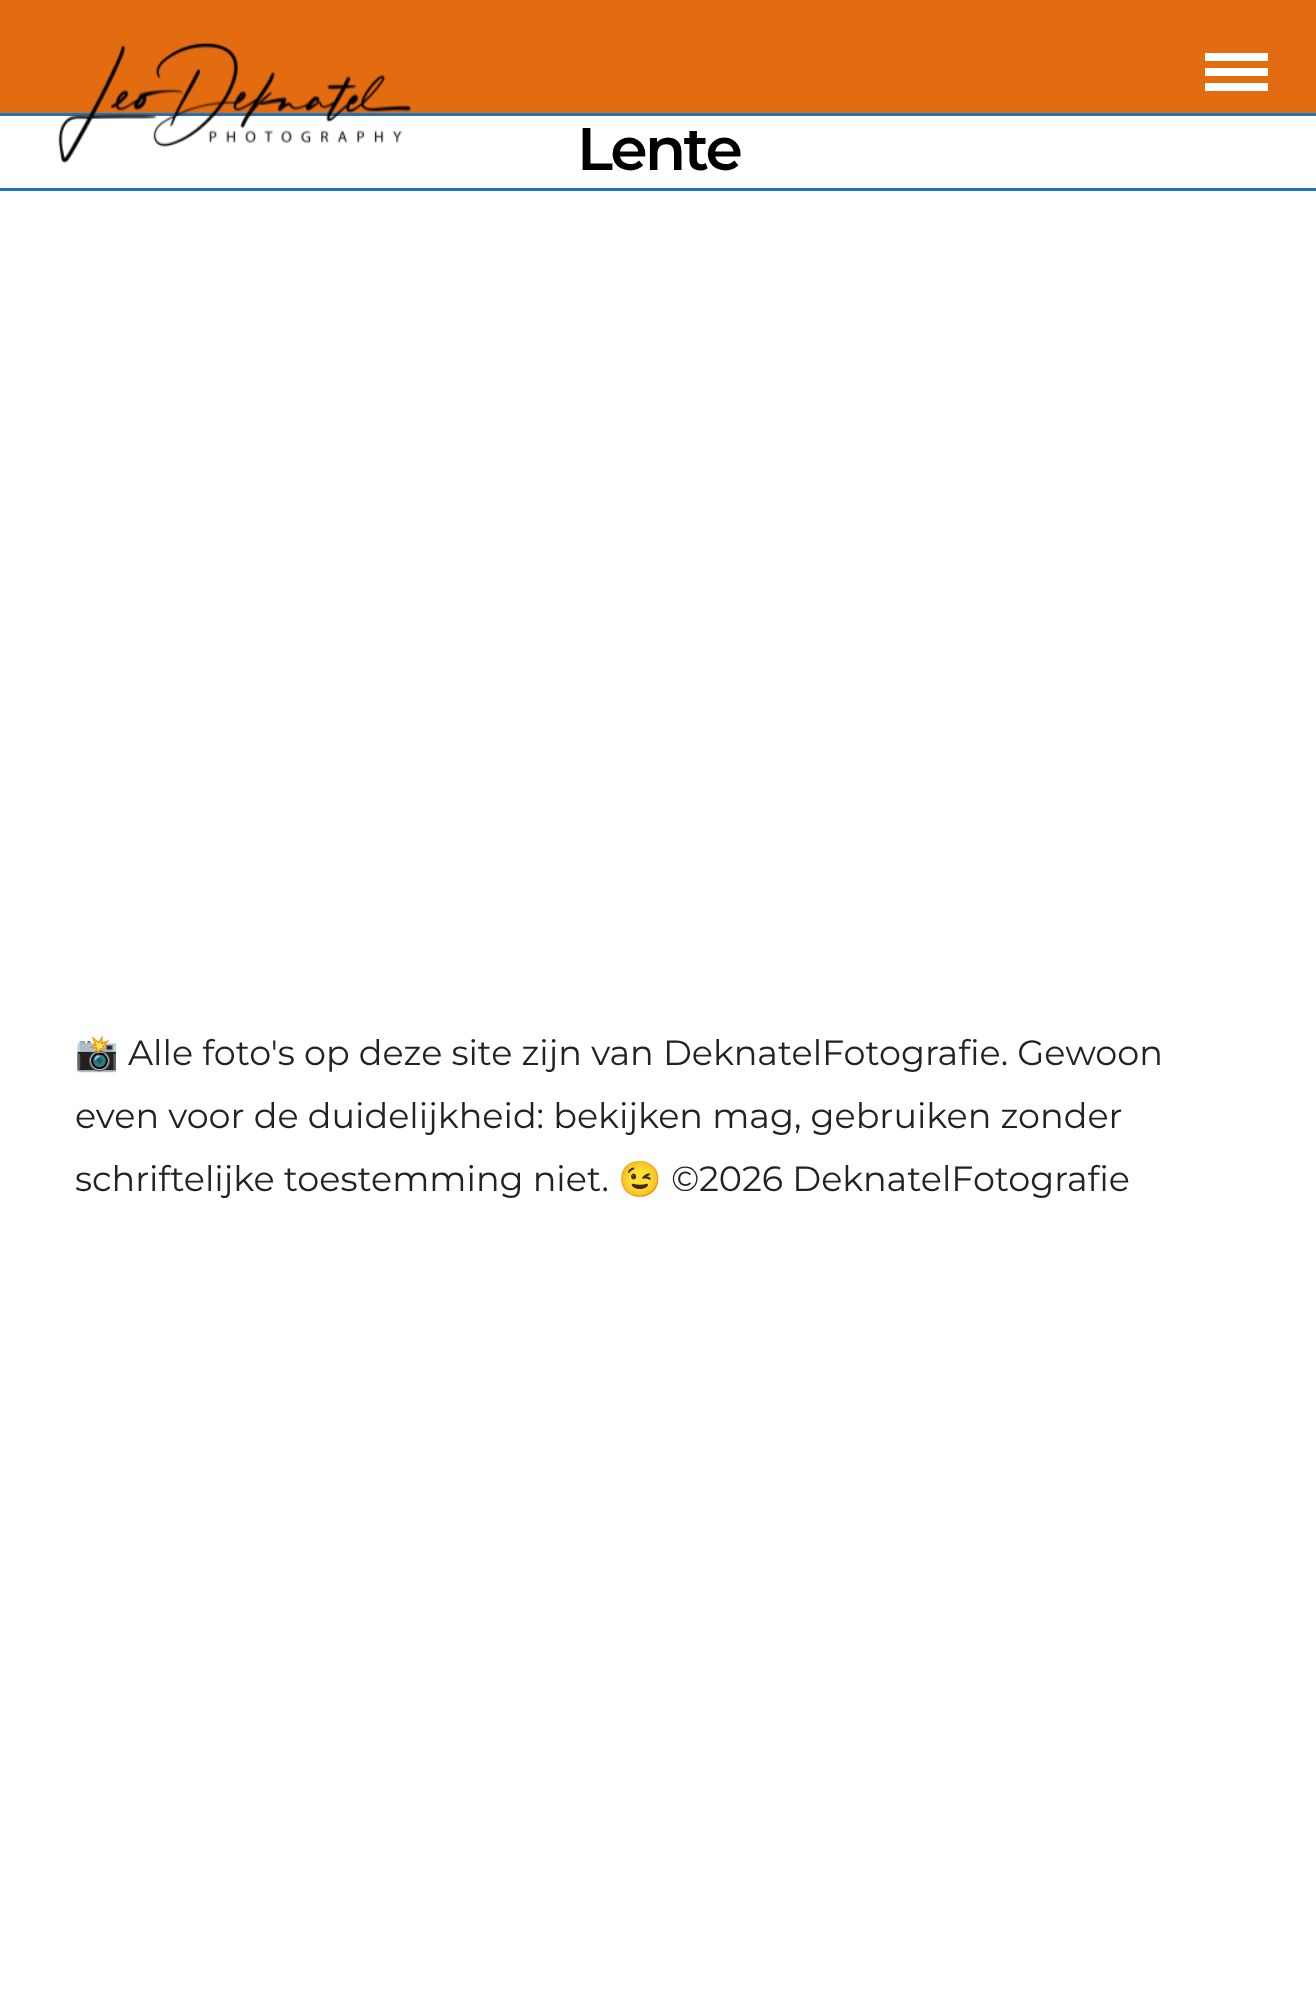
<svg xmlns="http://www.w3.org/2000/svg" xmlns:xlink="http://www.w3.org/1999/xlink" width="1316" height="1994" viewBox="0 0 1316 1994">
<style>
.cls-1{font:600 60px Montserrat;letter-spacing:-2.5px;fill:#000000}
.cls-2{font:35px Noto Color Emoji;fill:#222222}
.cls-3{font:35px Montserrat;fill:#222222}
</style>
<rect width="100%" height="100%" fill="#ffffff"/>
<rect fill="#e36c11" x="0" y="0" width="1316" height="113"/>
<rect fill="#1e73be" x="0" y="113" width="1316" height="3"/>
<image xlink:href="image0.png" x="58" y="42" width="354" height="121"/>
<rect fill="#ffffff" x="1205" y="53" width="63" height="8"/>
<rect fill="#ffffff" x="1205" y="68" width="63" height="8"/>
<rect fill="#ffffff" x="1205" y="83" width="63" height="8"/>
<rect fill="#1e73be" x="0" y="188" width="1316" height="3"/>
<text class="cls-1" x="577" y="170">Lente</text>
<text class="cls-2" x="75" y="1065">📸</text>
<text class="cls-3" x="128" y="1065">Alle foto's op deze site zijn van DeknatelFotografie. Gewoon</text>
<text class="cls-3"><tspan x="75" y="1128">even voor de duidelijkheid: bekijken mag, gebruiken zonder</tspan><tspan x="75" y="1191">schriftelijke toestemming niet.</tspan></text>
<text class="cls-2" x="618" y="1191">😉</text>
<text class="cls-3" x="671" y="1191">©2026 DeknatelFotografie</text>
</svg>
